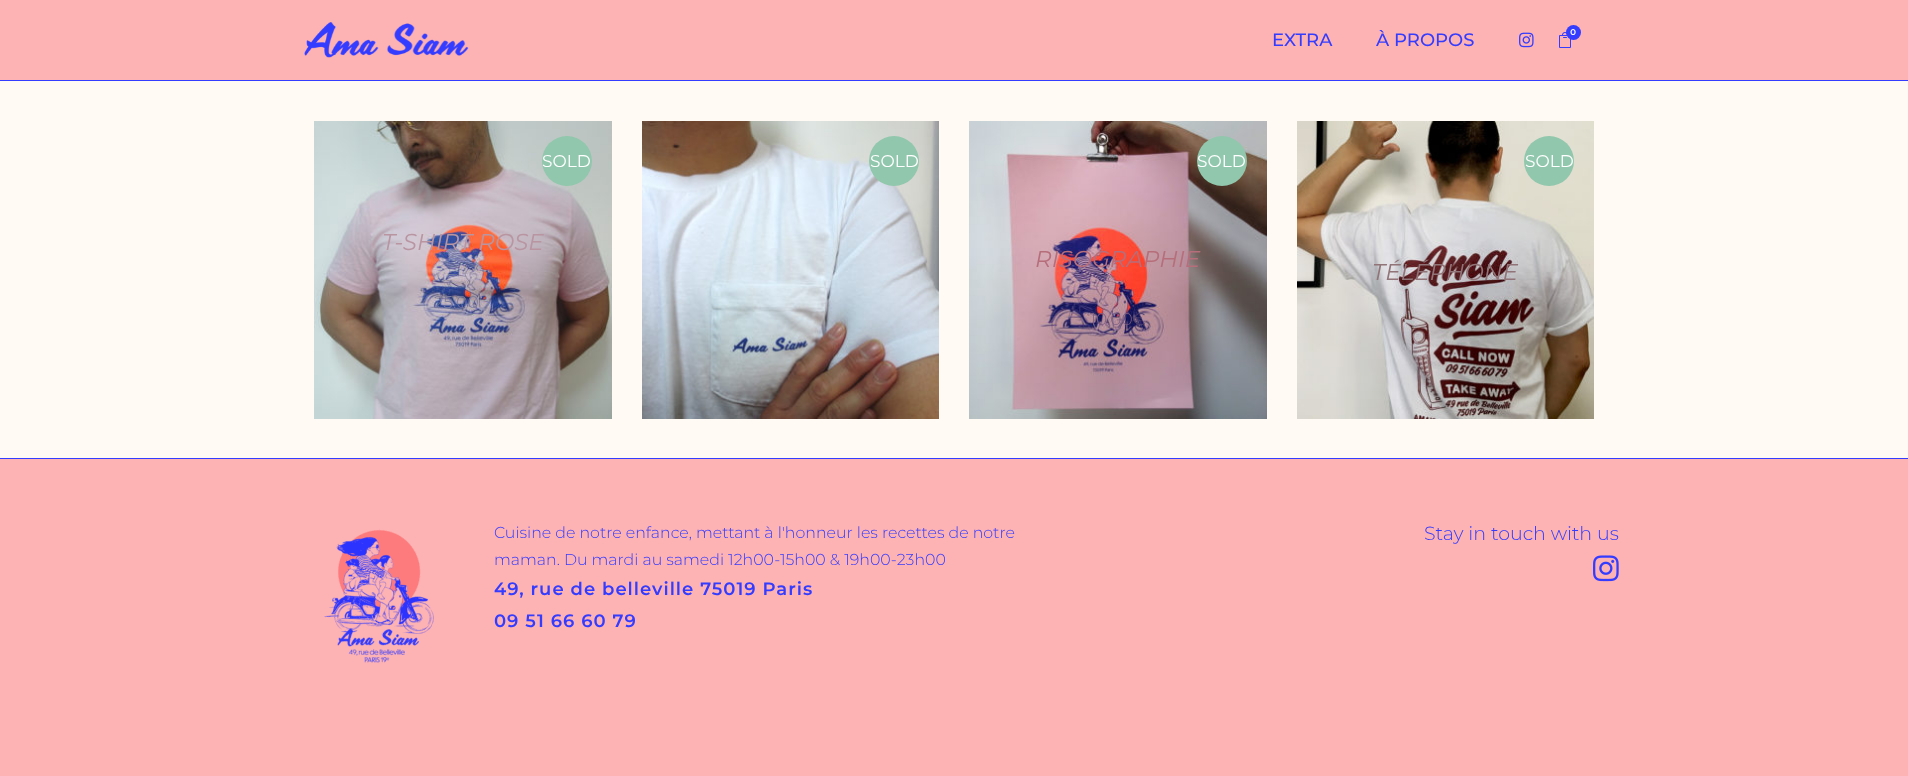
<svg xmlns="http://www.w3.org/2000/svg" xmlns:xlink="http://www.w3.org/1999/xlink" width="1908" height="776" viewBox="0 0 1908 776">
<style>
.cls-1{font:500 18px Montserrat;fill:#343cff}
.cls-2{font:600 10px Raleway;fill:#ffffff}
.cls-3{font:17px Montserrat;fill:#ffffff}
.cls-4{font:italic 23px Montserrat;fill:#b895a1}
.cls-5{font:300 17px Montserrat;fill:#77789d}
.cls-6{font:italic 23px Montserrat;fill:#b66e7b}
.cls-7{font:300 17px Montserrat;fill:#7d5e80}
.cls-8{font:300 17px Montserrat;fill:#4f406f}
.cls-9{font:italic 23px Montserrat;fill:#907478}
.cls-10{font:300 15.8px Montserrat;fill:#343cff}
.cls-11{font:600 18px Montserrat;letter-spacing:1px;fill:#343cff}
.cls-12{font:300 19px Montserrat;fill:#343cff}
</style>
<rect width="100%" height="100%" fill="#fffbf4"/>
<rect fill="#343cff" x="0" y="80" width="1908" height="1"/>
<rect fill="#fdb2b3" x="0" y="0" width="1908" height="80"/>
<image xlink:href="image0.png" x="304" y="22" width="165" height="36"/>
<image xlink:href="image1.png" x="1519" y="32" width="15" height="16"/>
<image xlink:href="image2.png" x="1559" y="32" width="12" height="16"/>
<circle fill="#343cff" cx="1573.5" cy="32.5" r="7.5"/>
<image xlink:href="image3.png" x="314" y="121" width="298" height="298"/>
<circle fill="#91c7ac" cx="567" cy="161" r="25"/>
<image xlink:href="image4.png" x="642" y="121" width="297" height="298"/>
<circle fill="#91c7ac" cx="894" cy="161" r="25"/>
<image xlink:href="image5.png" x="969" y="121" width="298" height="298"/>
<circle fill="#91c7ac" cx="1222" cy="161" r="25"/>
<image xlink:href="image6.png" x="1297" y="121" width="297" height="298"/>
<circle fill="#91c7ac" cx="1549" cy="161" r="25"/>
<rect fill="#fdb2b3" x="0" y="459" width="1908" height="317"/>
<rect fill="#343cff" x="0" y="458" width="1908" height="1"/>
<image xlink:href="image7.png" x="324" y="529" width="110" height="134"/>
<image xlink:href="image8.png" x="1593" y="555" width="26" height="27"/>
<text class="cls-1" x="1272" y="46">EXTRA</text>
<text class="cls-1" x="1376" y="46">À PROPOS</text>
<text class="cls-2" x="1570" y="35">0</text>
<text class="cls-3" x="542" y="167">SOLD</text>
<text class="cls-4" x="382" y="250">T-SHIRT ROSE</text>
<text class="cls-5" x="434" y="308">25.00</text>
<text class="cls-3" x="870" y="167">SOLD</text>
<text class="cls-3" x="1197" y="167">SOLD</text>
<text class="cls-6" x="1035" y="267">RISOGRAPHIE</text>
<text class="cls-7" x="1090" y="325">10.00</text>
<text class="cls-8" x="1132" y="325">€</text>
<text class="cls-3" x="1525" y="167">SOLD</text>
<text class="cls-9" x="1372" y="280">TÉLÉPHONE</text>
<text class="cls-10"><tspan x="494" y="538">Cuisine de notre enfance, mettant à l'honneur les recettes de notre</tspan><tspan x="494" y="565">maman. Du mardi au samedi 12h00-15h00 &amp; 19h00-23h00</tspan></text>
<text class="cls-11"><tspan x="494" y="595">49, rue de belleville 75019 Paris</tspan><tspan x="494" y="627">09 51 66 60 79</tspan></text>
<text class="cls-12" x="1424" y="540">Stay in touch with us</text>
</svg>
